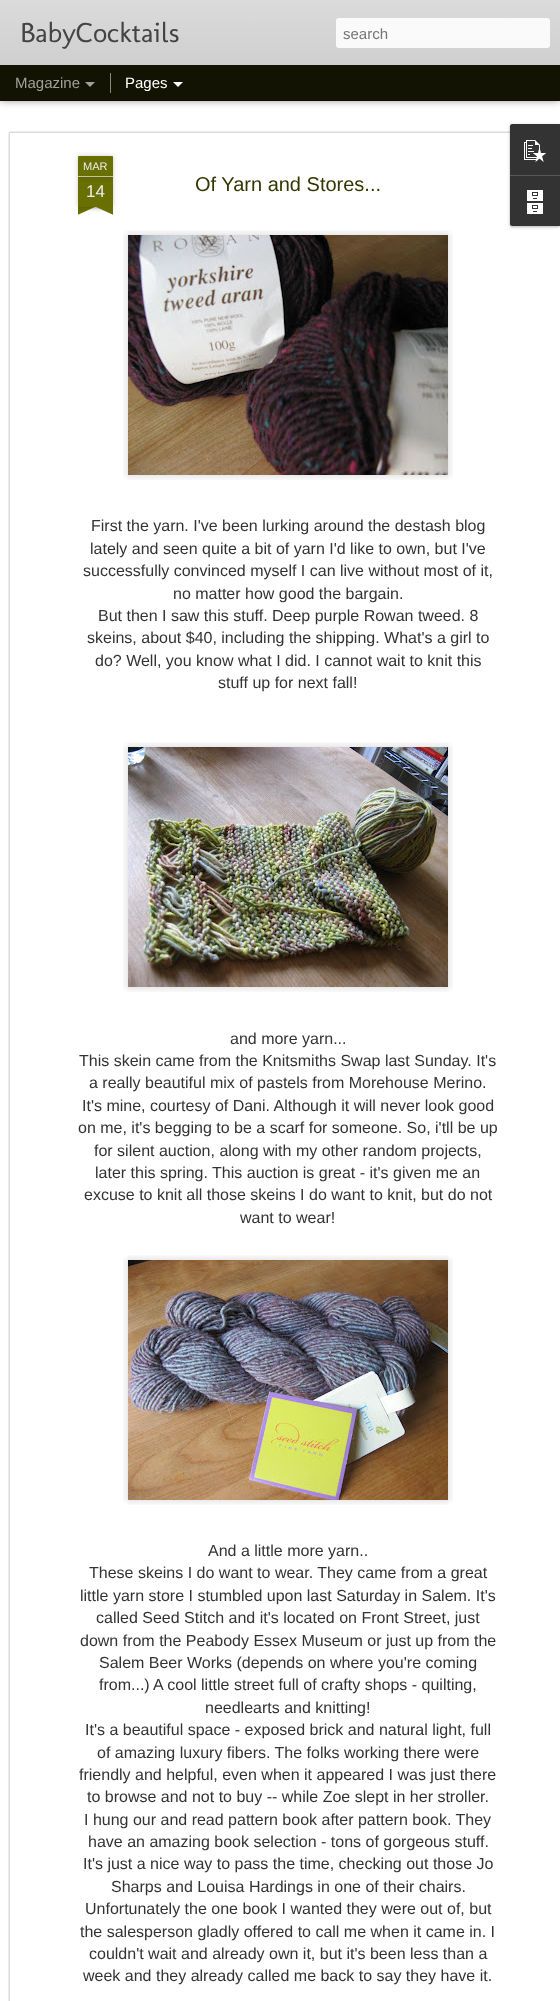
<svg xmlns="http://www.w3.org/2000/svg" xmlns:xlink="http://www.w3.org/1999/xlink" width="560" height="2001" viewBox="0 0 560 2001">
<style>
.cls-1{font:28px Molengo;fill:#444444}
.cls-2{font:15px Liberation Sans;fill:#757575}
.cls-3{font:15px Liberation Sans;fill:#a0a19a}
.cls-4{font:15px Liberation Sans;fill:#ffffff}
.cls-5{font:11px Liberation Sans;fill:#eeeeee}
.cls-6{font:17px Liberation Sans;fill:#eeeeee}
.cls-7{font:20px Liberation Sans;fill:#343700}
.cls-8{font:16px Liberation Sans;fill:#333333}
</style>
<defs>
<linearGradient id="g1" gradientUnits="userSpaceOnUse" x1="0" y1="0" x2="0" y2="65"><stop offset="0" stop-color="#dbdbdb"/><stop offset="1" stop-color="#cfcfcf"/></linearGradient>
<clipPath id="clip1"><rect x="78" y="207" width="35" height="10"/></clipPath>
<clipPath id="clip2"><rect x="78" y="207" width="35" height="10"/></clipPath>
</defs>
<rect width="100%" height="100%" fill="#121303"/>
<rect fill="#ffffff" x="0" y="101" width="560" height="1900"/>
<rect fill="#000000" fill-opacity="0.5" filter="blur(4px)" x="0" y="65" width="560" height="35"/>
<rect fill="url(#g1)" x="0" y="0" width="560" height="65"/>
<rect fill="#fafafa" x="336" y="18" width="214" height="30" rx="3"/>
<rect fill="#121303" x="0" y="65" width="560" height="35"/>
<path fill="#a0a19a" d="M85 82H95L90 87Z"/>
<rect fill="#898981" x="110" y="73" width="1" height="20"/>
<path fill="#ffffff" d="M173 82H183L178 87Z"/>
<image xlink:href="image0.png" x="8" y="131" width="502" height="1870"/>
<rect fill="#000000" fill-opacity="0.2" filter="blur(2.5px)" x="78" y="177" width="35" height="30"/>
<rect fill="#696f00" x="78" y="177" width="35" height="30"/>
<rect fill="#000000" fill-opacity="0.2" filter="blur(2.5px)" x="78" y="156" width="35" height="21" rx="1"/>
<path fill="#696f00" d="M79 156H112C112.5 156 113 156.5 113 157V177H78V157C78 156.5 78.5 156 79 156Z"/>
<rect fill="#c3c599" x="78" y="176" width="35" height="1"/>
<g clip-path="url(#clip1)">
<rect fill="#000000" fill-opacity="0.2" filter="blur(2.5px)" x="69" y="197" width="50" height="10"/>
</g>
<g clip-path="url(#clip2)">
<path fill="#696f00" d="M69 208L115 187L119 196L73 217Z"/>
</g>
<g clip-path="url(#clip1)">
<rect fill="#000000" fill-opacity="0.2" filter="blur(2.5px)" x="72" y="197" width="50" height="10"/>
</g>
<g clip-path="url(#clip2)">
<path fill="#696f00" d="M76 187L122 208L118 217L72 196Z"/>
</g>
<image xlink:href="image1.png" x="123" y="230" width="330" height="250"/>
<image xlink:href="image2.png" x="123" y="742" width="330" height="250"/>
<image xlink:href="image3.png" x="123" y="1255" width="330" height="250"/>
<rect fill="#000000" fill-opacity="0.3" filter="blur(1.5px)" x="510" y="125" width="50" height="102" rx="2"/>
<path fill="#333333" d="M512 124H560V175H510V126C510 125 511 124 512 124Z"/>
<image xlink:href="image4.png" x="524" y="140" width="22" height="22"/>
<path fill="#333333" d="M510 175H560V226H512C511 226 510 225 510 224Z"/>
<rect fill="#585858" x="510" y="175" width="50" height="1"/>
<image xlink:href="image5.png" x="527" y="190" width="16" height="24"/>
<text class="cls-1" x="20" y="42">BabyCocktails</text>
<text class="cls-2" x="343" y="39">search</text>
<text class="cls-3" x="15" y="88">Magazine</text>
<text class="cls-4" x="125" y="88">Pages</text>
<text class="cls-5" x="83" y="170">MAR</text>
<text class="cls-6" x="86" y="197">14</text>
<text class="cls-7" x="195" y="191">Of Yarn and Stores...</text>
<text class="cls-8" x="91" y="531">First the yarn. I've been lurking around the destash blog</text>
<text class="cls-8" x="90" y="554">lately and seen quite a bit of yarn I'd like to own, but I've</text>
<text class="cls-8" x="83" y="576">successfully convinced myself I can live without most of it,</text>
<text class="cls-8" x="173" y="599">no matter how good the bargain.</text>
<text class="cls-8" x="98" y="621">But then I saw this stuff. Deep purple Rowan tweed. 8</text>
<text class="cls-8" x="87" y="643">skeins, about $40, including the shipping. What's a girl to</text>
<text class="cls-8" x="95" y="666">do? Well, you know what I did. I cannot wait to knit this</text>
<text class="cls-8" x="218" y="688">stuff up for next fall!</text>
<text class="cls-8" x="230" y="1044">and more yarn...</text>
<text class="cls-8" x="79" y="1066">This skein came from the Knitsmiths Swap last Sunday. It's</text>
<text class="cls-8" x="89" y="1088">a really beautiful mix of pastels from Morehouse Merino.</text>
<text class="cls-8" x="82" y="1111">It's mine, courtesy of Dani. Although it will never look good</text>
<text class="cls-8" x="78" y="1133">on me, it's begging to be a scarf for someone. So, i'tll be up</text>
<text class="cls-8" x="94" y="1156">for silent auction, along with my other random projects,</text>
<text class="cls-8" x="95" y="1178">later this spring. This auction is great - it's given me an</text>
<text class="cls-8" x="84" y="1200">excuse to knit all those skeins I do want to knit, but do not</text>
<text class="cls-8" x="240" y="1223">want to wear!</text>
<text class="cls-8" x="208" y="1556">And a little more yarn..</text>
<text class="cls-8" x="89" y="1578">These skeins I do want to wear. They came from a great</text>
<text class="cls-8" x="80" y="1601">little yarn store I stumbled upon last Saturday in Salem. It's</text>
<text class="cls-8" x="96" y="1623">called Seed Stitch and it's located on Front Street, just</text>
<text class="cls-8" x="80" y="1646">down from the Peabody Essex Museum or just up from the</text>
<text class="cls-8"><tspan x="99" y="1668">Salem Beer Works (depends on where you're coming</tspan><tspan x="99" y="1690">from...)</tspan></text>
<text class="cls-8" x="153" y="1690">A cool little street full of crafty shops - quilting,</text>
<text class="cls-8" x="205" y="1713">needlearts and knitting!</text>
<text class="cls-8" x="85" y="1735">It's a beautiful space - exposed brick and natural light, full</text>
<text class="cls-8" x="97" y="1758">of amazing luxury fibers. The folks working there were</text>
<text class="cls-8" x="79" y="1780">friendly and helpful, even when it appeared I was just there</text>
<text class="cls-8" x="87" y="1802">to browse and not to buy -- while Zoe slept in her stroller.</text>
<text class="cls-8" x="84" y="1825">I hung our and read pattern book after pattern book. They</text>
<text class="cls-8" x="88" y="1847">have an amazing book selection - tons of gorgeous stuff.</text>
<text class="cls-8" x="83" y="1869">It's just a nice way to pass the time, checking out those Jo</text>
<text class="cls-8" x="111" y="1892">Sharps and Louisa Hardings in one of their chairs.</text>
<text class="cls-8" x="85" y="1914">Unfortunately the one book I wanted they were out of, but</text>
<text class="cls-8" x="80" y="1937">the salesperson gladly offered to call me when it came in. I</text>
<text class="cls-8" x="89" y="1959">couldn't wait and already own it, but it's been less than a</text>
<text class="cls-8" x="83" y="1981">week and they already called me back to say they have it.</text>
</svg>
